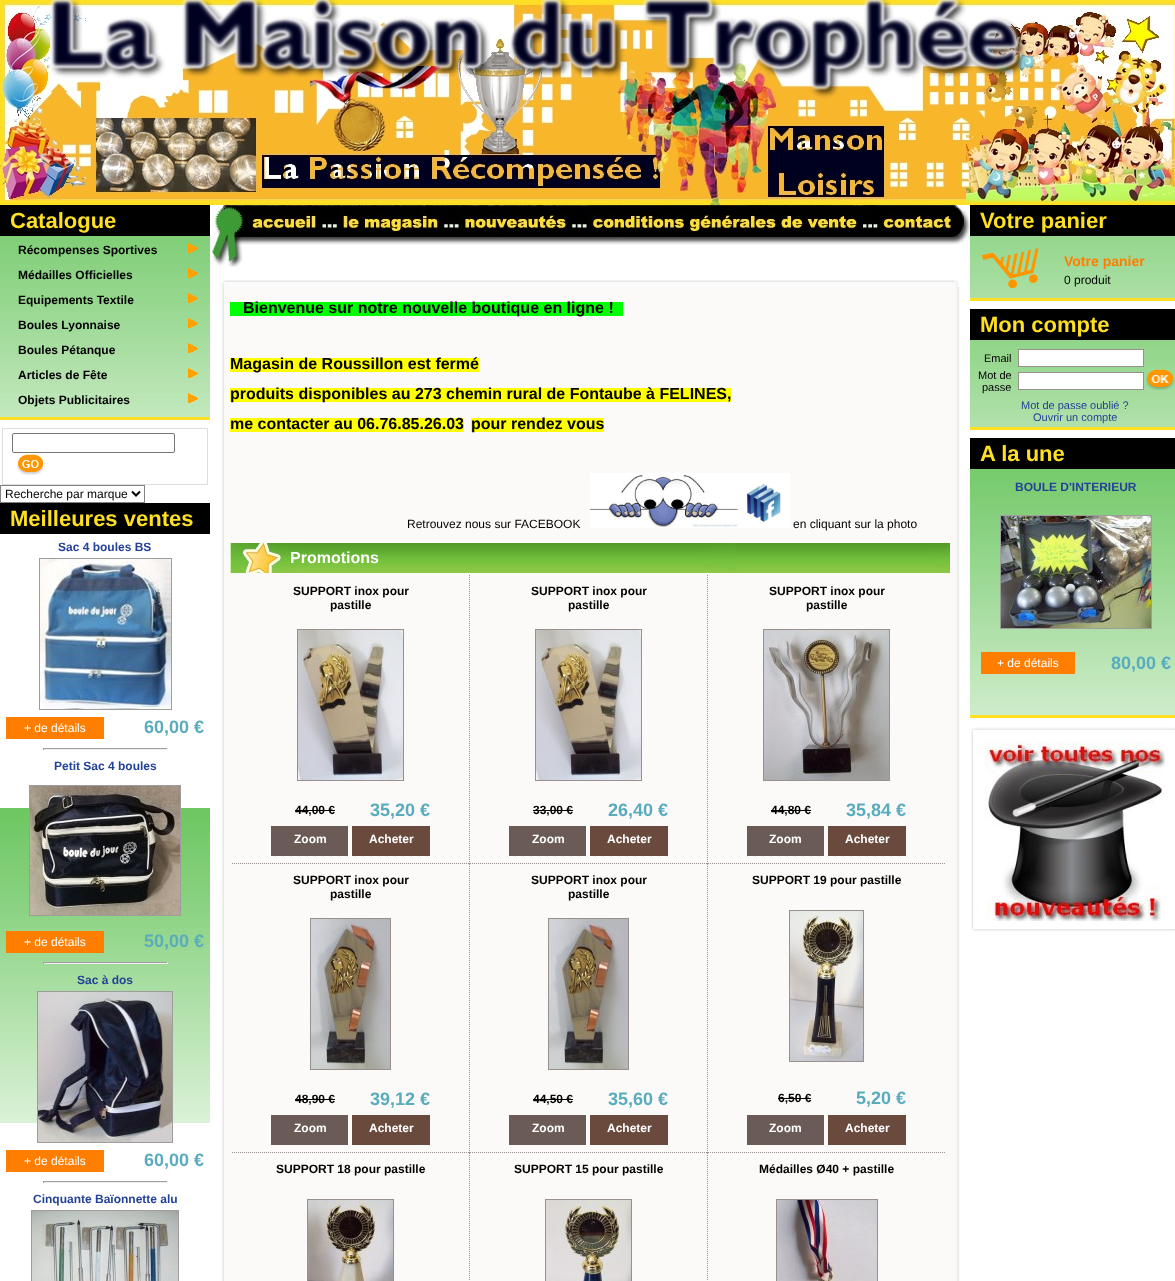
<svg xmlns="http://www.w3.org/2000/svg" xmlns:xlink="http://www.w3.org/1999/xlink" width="1175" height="1281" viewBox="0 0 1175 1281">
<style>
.cls-1{font:bold 22px Liberation Sans;fill:#fedf22}
.cls-2{font:bold 12px Liberation Sans;fill:#000000}
.cls-3{font:12px Liberation Sans;fill:#000000}
.cls-4{font:bold 12px Liberation Sans;fill:#244298}
.cls-5{font:12px Liberation Sans;fill:#ffffff}
.cls-6{font:bold 18px Liberation Sans;fill:#59acbd}
.cls-7{font:bold 16px Liberation Sans;fill:#000000}
.cls-8{font:bold 16px Liberation Sans;fill:#ffffff}
.cls-9{font:bold 12px Liberation Sans;fill:#ffffff}
.cls-10{font:bold 14px Liberation Sans;fill:#ff7e00}
.cls-11{font:11px Liberation Sans;fill:#000000}
.cls-12{font:11px Liberation Sans;fill:#244298}
</style>
<rect width="100%" height="100%" fill="#ffffff"/>
<image xlink:href="image0.png" x="0" y="0" width="1175" height="205"/>
<rect fill="#000000" x="0" y="205" width="210" height="31"/>
<image xlink:href="image1.png" x="0" y="236" width="210" height="181"/>
<image xlink:href="image2.png" x="188" y="243" width="10" height="10"/>
<image xlink:href="image3.png" x="188" y="268" width="10" height="10"/>
<image xlink:href="image4.png" x="188" y="293" width="10" height="10"/>
<image xlink:href="image5.png" x="188" y="318" width="10" height="10"/>
<image xlink:href="image6.png" x="188" y="343" width="10" height="10"/>
<image xlink:href="image7.png" x="188" y="368" width="10" height="10"/>
<image xlink:href="image8.png" x="188" y="393" width="10" height="10"/>
<rect fill="#fedf22" x="0" y="417" width="210" height="3"/>
<rect fill="none" stroke="#dddddd" x="2.5" y="428.5" width="205" height="56"/>
<rect fill="none" stroke="#767676" x="12.5" y="433.5" width="162" height="19" rx="1.5"/>
<image xlink:href="image9.png" x="17" y="454" width="26" height="21"/>
<rect fill="none" stroke="#828282" x="0.5" y="485.5" width="144" height="17"/>
<path fill="none" stroke="#000000" stroke-width="2" d="M132 491.5L136 495.5L140 491.5"/>
<rect fill="#000000" x="0" y="503" width="210" height="31"/>
<image xlink:href="image10.png" x="0" y="808" width="210" height="315"/>
<rect fill="none" stroke="#9e9d9c" x="39.5" y="558.5" width="132" height="151"/>
<image xlink:href="image11.png" x="40" y="559" width="131" height="150"/>
<rect fill="#ff7e00" x="6" y="717" width="98" height="22"/>
<rect fill="#9f9f9f" x="43" y="748" width="125" height="1"/>
<rect fill="#eeeeee" x="167" y="748" width="1" height="2"/>
<rect fill="#eeeeee" x="43" y="749" width="125" height="1"/>
<rect fill="#9f9f9f" x="43" y="748" width="1" height="2"/>
<rect fill="none" stroke="#9e9d9c" x="29.5" y="785.5" width="151" height="130"/>
<image xlink:href="image12.png" x="30" y="786" width="150" height="129"/>
<rect fill="#ff7e00" x="6" y="931" width="98" height="22"/>
<rect fill="#9f9f9f" x="43" y="962" width="125" height="1"/>
<rect fill="#eeeeee" x="167" y="962" width="1" height="2"/>
<rect fill="#eeeeee" x="43" y="963" width="125" height="1"/>
<rect fill="#9f9f9f" x="43" y="962" width="1" height="2"/>
<rect fill="none" stroke="#9e9d9c" x="37.5" y="991.5" width="135" height="151"/>
<image xlink:href="image13.png" x="38" y="992" width="134" height="150"/>
<rect fill="#ff7e00" x="6" y="1150" width="98" height="22"/>
<rect fill="#9f9f9f" x="43" y="1181" width="125" height="1"/>
<rect fill="#eeeeee" x="167" y="1181" width="1" height="2"/>
<rect fill="#eeeeee" x="43" y="1182" width="125" height="1"/>
<rect fill="#9f9f9f" x="43" y="1181" width="1" height="2"/>
<rect fill="none" stroke="#9e9d9c" x="31.5" y="1210.5" width="147" height="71"/>
<image xlink:href="image14.png" x="32" y="1211" width="146" height="70"/>
<image xlink:href="image15.png" x="212" y="205" width="758" height="62"/>
<image xlink:href="image16.png" x="220" y="280" width="739" height="7"/>
<image xlink:href="image17.png" x="221" y="287" width="739" height="994"/>
<rect fill="#00ff00" x="230" y="302" width="393" height="14"/>
<rect fill="#ffff00" x="230" y="358" width="249" height="14"/>
<rect fill="#ffff00" x="230" y="388" width="501" height="14"/>
<rect fill="#ffff00" x="230" y="418" width="234" height="14"/>
<rect fill="#ffff00" x="471" y="418" width="133" height="14"/>
<image xlink:href="image18.png" x="590" y="473" width="200" height="55"/>
<image xlink:href="image19.png" x="230" y="543" width="720" height="30"/>
<path fill="none" stroke="#998f8c" stroke-dasharray="1 1" d="M469.5 575V864"/>
<path fill="none" stroke="#998f8c" stroke-dasharray="1 1" d="M232 863.5H470"/>
<rect fill="none" stroke="#998f8c" x="297.5" y="629.5" width="106" height="151"/>
<image xlink:href="image20.png" x="298" y="630" width="105" height="150"/>
<rect fill="#000000" x="295" y="810" width="40" height="1"/>
<rect fill="#6a5b56" x="271" y="826" width="77" height="30"/>
<rect fill="#6a4a3d" x="352" y="826" width="78" height="30"/>
<path fill="none" stroke="#998f8c" stroke-dasharray="1 1" d="M707.5 575V864"/>
<path fill="none" stroke="#998f8c" stroke-dasharray="1 1" d="M470 863.5H708"/>
<rect fill="none" stroke="#998f8c" x="535.5" y="629.5" width="106" height="151"/>
<image xlink:href="image20.png" x="536" y="630" width="105" height="150"/>
<rect fill="#000000" x="533" y="810" width="40" height="1"/>
<rect fill="#6a5b56" x="509" y="826" width="77" height="30"/>
<rect fill="#6a4a3d" x="590" y="826" width="78" height="30"/>
<path fill="none" stroke="#998f8c" stroke-dasharray="1 1" d="M708 863.5H945"/>
<rect fill="none" stroke="#998f8c" x="763.5" y="629.5" width="126" height="151"/>
<image xlink:href="image21.png" x="764" y="630" width="125" height="150"/>
<rect fill="#000000" x="771" y="810" width="40" height="1"/>
<rect fill="#6a5b56" x="747" y="826" width="77" height="30"/>
<rect fill="#6a4a3d" x="828" y="826" width="78" height="30"/>
<path fill="none" stroke="#998f8c" stroke-dasharray="1 1" d="M469.5 864V1153"/>
<path fill="none" stroke="#998f8c" stroke-dasharray="1 1" d="M232 1152.5H470"/>
<rect fill="none" stroke="#998f8c" x="310.5" y="918.5" width="80" height="151"/>
<image xlink:href="image22.png" x="311" y="919" width="79" height="150"/>
<rect fill="#000000" x="295" y="1099" width="40" height="1"/>
<rect fill="#6a5b56" x="271" y="1115" width="77" height="30"/>
<rect fill="#6a4a3d" x="352" y="1115" width="78" height="30"/>
<path fill="none" stroke="#998f8c" stroke-dasharray="1 1" d="M707.5 864V1153"/>
<path fill="none" stroke="#998f8c" stroke-dasharray="1 1" d="M470 1152.5H708"/>
<rect fill="none" stroke="#998f8c" x="548.5" y="918.5" width="80" height="151"/>
<image xlink:href="image22.png" x="549" y="919" width="79" height="150"/>
<rect fill="#000000" x="533" y="1099" width="40" height="1"/>
<rect fill="#6a5b56" x="509" y="1115" width="77" height="30"/>
<rect fill="#6a4a3d" x="590" y="1115" width="78" height="30"/>
<path fill="none" stroke="#998f8c" stroke-dasharray="1 1" d="M708 1152.5H945"/>
<rect fill="none" stroke="#998f8c" x="789.5" y="910.5" width="74" height="151"/>
<image xlink:href="image23.png" x="790" y="911" width="73" height="150"/>
<rect fill="#000000" x="778" y="1098" width="33" height="1"/>
<rect fill="#6a5b56" x="747" y="1115" width="77" height="30"/>
<rect fill="#6a4a3d" x="828" y="1115" width="78" height="30"/>
<path fill="none" stroke="#998f8c" stroke-dasharray="1 1" d="M469.5 1153V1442"/>
<rect fill="none" stroke="#998f8c" x="307.5" y="1199.5" width="86" height="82"/>
<image xlink:href="image24.png" x="308" y="1200" width="85" height="81"/>
<path fill="none" stroke="#998f8c" stroke-dasharray="1 1" d="M707.5 1153V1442"/>
<rect fill="none" stroke="#998f8c" x="545.5" y="1199.5" width="86" height="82"/>
<image xlink:href="image25.png" x="546" y="1200" width="85" height="81"/>
<rect fill="none" stroke="#998f8c" x="776.5" y="1199.5" width="101" height="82"/>
<image xlink:href="image26.png" x="777" y="1200" width="100" height="81"/>
<rect fill="#000000" x="970" y="205" width="205" height="31"/>
<image xlink:href="image27.png" x="970" y="236" width="205" height="62"/>
<image xlink:href="image28.png" x="982" y="248" width="57" height="40"/>
<rect fill="#fedf22" x="970" y="298" width="205" height="3"/>
<rect fill="#000000" x="970" y="309" width="205" height="31"/>
<image xlink:href="image29.png" x="970" y="340" width="205" height="87"/>
<rect fill="#ffffff" stroke="#998f8c" x="1018.5" y="349.5" width="125" height="17"/>
<rect fill="#ffffff" stroke="#998f8c" x="1018.5" y="372.5" width="125" height="17"/>
<image xlink:href="image30.png" x="1146" y="369" width="29" height="21"/>
<rect fill="#fedf22" x="970" y="427" width="205" height="3"/>
<rect fill="#000000" x="970" y="438" width="205" height="31"/>
<image xlink:href="image31.png" x="970" y="469" width="205" height="246"/>
<rect fill="none" stroke="#9e9d9c" x="1000.5" y="515.5" width="151" height="113"/>
<image xlink:href="image32.png" x="1001" y="516" width="150" height="112"/>
<rect fill="#ff7e00" x="981" y="652" width="94" height="22"/>
<rect fill="#fedf22" x="970" y="715" width="205" height="3"/>
<image xlink:href="image33.png" x="971" y="727" width="204" height="11"/>
<image xlink:href="image34.png" x="971" y="738" width="2" height="189"/>
<image xlink:href="image35.png" x="985" y="741" width="180" height="180"/>
<image xlink:href="image36.png" x="971" y="927" width="204" height="5"/>
<text class="cls-1" x="10" y="228">Catalogue</text>
<text class="cls-2" x="18" y="254">Récompenses Sportives</text>
<text class="cls-2" x="18" y="279">Médailles Officielles</text>
<text class="cls-2" x="18" y="304">Equipements Textile</text>
<text class="cls-2" x="18" y="329">Boules Lyonnaise</text>
<text class="cls-2" x="18" y="354">Boules Pétanque</text>
<text class="cls-2" x="18" y="379">Articles de Fête</text>
<text class="cls-2" x="18" y="404">Objets Publicitaires</text>
<text class="cls-3" x="5" y="498">Recherche par marque</text>
<text class="cls-1" x="10" y="526">Meilleures ventes</text>
<text class="cls-4" x="58" y="551">Sac 4 boules BS</text>
<text class="cls-5" x="24" y="732">+ de détails</text>
<text class="cls-6" x="144" y="733">60,00 €</text>
<text class="cls-4" x="54" y="770">Petit Sac 4 boules</text>
<text class="cls-5" x="24" y="946">+ de détails</text>
<text class="cls-6" x="144" y="947">50,00 €</text>
<text class="cls-4" x="77" y="984">Sac à dos</text>
<text class="cls-5" x="24" y="1165">+ de détails</text>
<text class="cls-6" x="144" y="1166">60,00 €</text>
<text class="cls-4" x="33" y="1203">Cinquante Baïonnette alu</text>
<text class="cls-7" x="243" y="313">Bienvenue sur notre nouvelle boutique en ligne !</text>
<text class="cls-7"><tspan x="230" y="369">Magasin de Roussillon est fermé</tspan><tspan x="230" y="399">produits disponibles au 273 chemin rural de Fontaube à FELINES,</tspan><tspan x="230" y="429">me contacter au 06.76.85.26.03</tspan></text>
<text class="cls-7" x="471" y="429">pour rendez vous</text>
<text class="cls-3" x="407" y="528">Retrouvez nous sur FACEBOOK</text>
<text class="cls-3" x="793" y="528">en cliquant sur la photo</text>
<text class="cls-8" x="290" y="563">Promotions</text>
<text class="cls-2" x="293" y="595">SUPPORT inox pour</text>
<text class="cls-2" x="330" y="609">pastille</text>
<text class="cls-2" x="295" y="814">44,00 €</text>
<text class="cls-6" x="370" y="816">35,20 €</text>
<text class="cls-9" x="294" y="843">Zoom</text>
<text class="cls-9" x="369" y="843">Acheter</text>
<text class="cls-2" x="531" y="595">SUPPORT inox pour</text>
<text class="cls-2" x="568" y="609">pastille</text>
<text class="cls-2" x="533" y="814">33,00 €</text>
<text class="cls-6" x="608" y="816">26,40 €</text>
<text class="cls-9" x="532" y="843">Zoom</text>
<text class="cls-9" x="607" y="843">Acheter</text>
<text class="cls-2" x="769" y="595">SUPPORT inox pour</text>
<text class="cls-2" x="806" y="609">pastille</text>
<text class="cls-2" x="771" y="814">44,80 €</text>
<text class="cls-6" x="846" y="816">35,84 €</text>
<text class="cls-9" x="769" y="843">Zoom</text>
<text class="cls-9" x="845" y="843">Acheter</text>
<text class="cls-2" x="293" y="884">SUPPORT inox pour</text>
<text class="cls-2" x="330" y="898">pastille</text>
<text class="cls-2" x="295" y="1103">48,90 €</text>
<text class="cls-6" x="370" y="1105">39,12 €</text>
<text class="cls-9" x="294" y="1132">Zoom</text>
<text class="cls-9" x="369" y="1132">Acheter</text>
<text class="cls-2" x="531" y="884">SUPPORT inox pour</text>
<text class="cls-2" x="568" y="898">pastille</text>
<text class="cls-2" x="533" y="1103">44,50 €</text>
<text class="cls-6" x="608" y="1105">35,60 €</text>
<text class="cls-9" x="532" y="1132">Zoom</text>
<text class="cls-9" x="607" y="1132">Acheter</text>
<text class="cls-2" x="752" y="884">SUPPORT 19 pour pastille</text>
<text class="cls-2" x="778" y="1102">6,50 €</text>
<text class="cls-6" x="856" y="1104">5,20 €</text>
<text class="cls-9" x="769" y="1132">Zoom</text>
<text class="cls-9" x="845" y="1132">Acheter</text>
<text class="cls-2" x="276" y="1173">SUPPORT 18 pour pastille</text>
<text class="cls-2" x="514" y="1173">SUPPORT 15 pour pastille</text>
<text class="cls-2" x="759" y="1173">Médailles Ø40 + pastille</text>
<text class="cls-1" x="980" y="228">Votre panier</text>
<text class="cls-10" x="1064" y="266">Votre panier</text>
<text class="cls-3" x="1064" y="284">0 produit</text>
<text class="cls-1" x="980" y="332">Mon compte</text>
<text class="cls-11" x="984" y="362">Email</text>
<text class="cls-11" x="978" y="379">Mot de</text>
<text class="cls-11" x="982" y="391">passe</text>
<text class="cls-12" x="1021" y="409">Mot de passe oublié ?</text>
<text class="cls-12" x="1033" y="421">Ouvrir un compte</text>
<text class="cls-1" x="980" y="461">A la une</text>
<text class="cls-4" x="1015" y="491">BOULE D'INTERIEUR</text>
<text class="cls-5" x="997" y="667">+ de détails</text>
<text class="cls-6" x="1111" y="669">80,00 €</text>
</svg>
